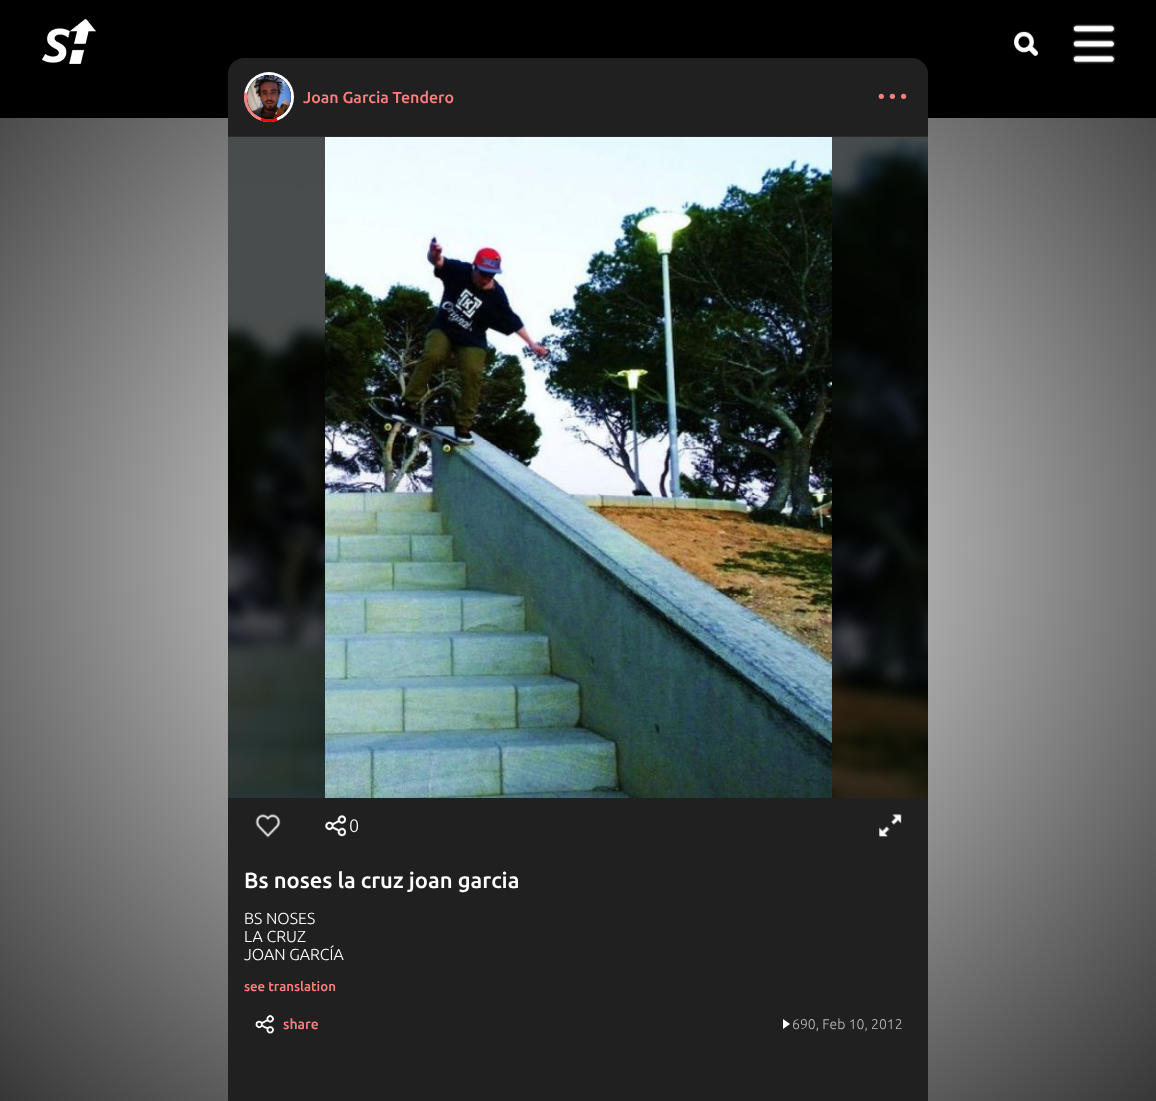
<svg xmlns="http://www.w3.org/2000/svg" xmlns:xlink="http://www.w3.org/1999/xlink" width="1156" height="1101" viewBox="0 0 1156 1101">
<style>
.cls-1{font:500 16px Ubuntu;fill:#ff7f7f}
.cls-2{font:300 18px Ubuntu;fill:#ffffff}
.cls-3{font:500 22px Ubuntu;fill:#ffffff}
.cls-4{font:300 16px Ubuntu;fill:#ffffff}
.cls-5{font:500 13.25px Ubuntu;fill:#ff7f7f}
.cls-6{font:500 14px Ubuntu;fill:#ff7f7f}
.cls-7{font:300 14px Ubuntu;fill:#bbbbbb}
</style>
<defs>
<radialGradient id="g1" gradientUnits="userSpaceOnUse" cx="0" cy="0" r="1" gradientTransform="matrix(817 0 0 779 578 551)"><stop offset="0" stop-color="#ffffff"/><stop offset="1" stop-color="#373737"/></radialGradient>
</defs>
<rect width="100%" height="100%" fill="#ffffff"/>
<rect fill="url(#g1)" x="0" y="118" width="1156" height="983"/>
<rect fill="#000000" x="0" y="0" width="1156" height="118"/>
<image xlink:href="image0.png" x="42" y="19" width="54" height="45"/>
<image xlink:href="image1.png" x="1014" y="31" width="24" height="25"/>
<image xlink:href="image2.png" x="1072" y="24" width="44" height="40"/>
<rect fill="#202020" x="228" y="58" width="700" height="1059" rx="16"/>
<circle fill="#ffffff" cx="269" cy="97" r="25"/>
<path fill="#ff0000" fill-opacity="0.5" d="M269 97L260.5 120.5C255 118.5 250.5 114.5 247.5 109.5Z"/>
<path fill="#ff0000" fill-opacity="0.5" d="M269 97L247.5 109.5C244.5 104.5 243.5 98.5 244.5 92.5Z"/>
<path fill="#ff0000" d="M269 97L277.5 120.5C272 122.5 266 122.5 260.5 120.5Z"/>
<rect fill="#202020" filter="blur(0.5px)" x="247" y="75" width="44" height="44" rx="22"/>
<circle fill="#000000" cx="269" cy="97" r="22"/>
<image xlink:href="image3.png" x="247" y="75" width="44" height="44"/>
<circle fill="#ff7f7f" cx="881.3" cy="96.3" r="2.6"/>
<circle fill="#ff7f7f" cx="892.4" cy="96.3" r="2.6"/>
<circle fill="#ff7f7f" cx="903.6" cy="96.3" r="2.6"/>
<rect fill="#000000" x="228" y="137" width="700" height="661"/>
<rect fill="#2b2b2b" x="228" y="136" width="700" height="1"/>
<image xlink:href="image4.png" x="228" y="137" width="700" height="661"/>
<image xlink:href="image5.png" x="325" y="137" width="507" height="22"/>
<image xlink:href="image6.png" x="325" y="159" width="507" height="639"/>
<image xlink:href="image7.png" x="255" y="814" width="26" height="24"/>
<image xlink:href="image8.png" x="325" y="815" width="21" height="22"/>
<image xlink:href="image9.png" x="878" y="814" width="24" height="23"/>
<image xlink:href="image10.png" x="255" y="1015" width="19" height="19"/>
<path fill="#ffffff" d="M783 1029V1019L790 1024Z"/>
<text class="cls-1" x="303" y="103">Joan Garcia Tendero</text>
<text class="cls-2" x="349" y="832">0</text>
<text class="cls-3" x="244" y="888">Bs noses la cruz joan garcia</text>
<text class="cls-4"><tspan x="244" y="924">BS NOSES</tspan><tspan x="244" y="942">LA CRUZ</tspan><tspan x="244" y="960">JOAN GARCÍA</tspan></text>
<text class="cls-5" x="244" y="991">see translation</text>
<text class="cls-6" x="283" y="1029">share</text>
<text class="cls-7" x="792" y="1029">690, Feb 10, 2012</text>
</svg>
